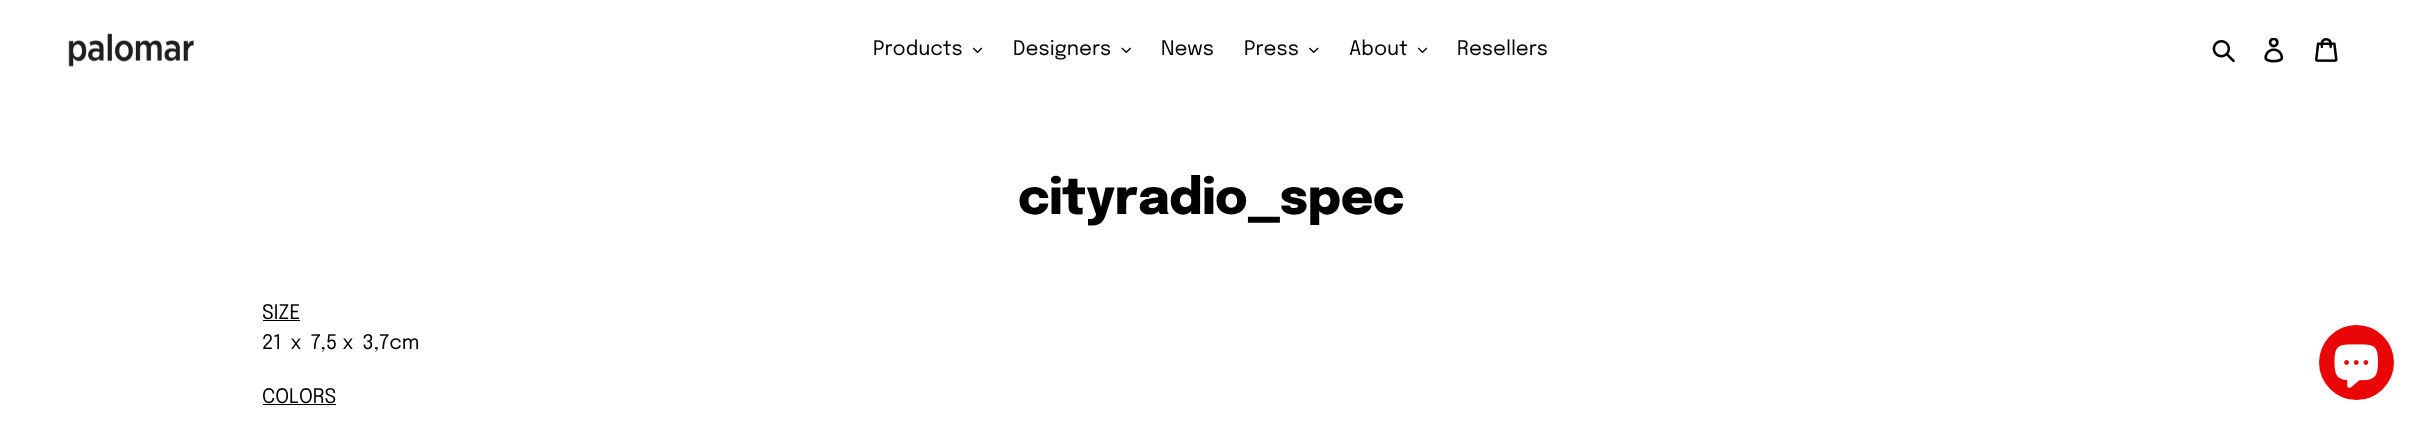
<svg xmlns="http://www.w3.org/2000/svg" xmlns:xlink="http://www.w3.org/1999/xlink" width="2421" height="426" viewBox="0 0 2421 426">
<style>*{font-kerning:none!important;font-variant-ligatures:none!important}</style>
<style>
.cls-1{font:20px Epilogue;fill:#000000}
.cls-2{font:800 50px Epilogue;letter-spacing:-0.5px;fill:#000000}
</style>
<rect width="100%" height="100%" fill="#ffffff"/>
<image xlink:href="image0.png" x="68" y="33" width="126" height="34"/>
<image xlink:href="image1.png" x="973" y="47" width="10" height="6"/>
<image xlink:href="image2.png" x="1121" y="47" width="10" height="6"/>
<image xlink:href="image3.png" x="1309" y="47" width="10" height="6"/>
<image xlink:href="image1.png" x="1418" y="47" width="10" height="6"/>
<image xlink:href="image4.png" x="2212" y="40" width="23" height="23"/>
<image xlink:href="image5.png" x="2264" y="38" width="20" height="25"/>
<image xlink:href="image6.png" x="2315" y="38" width="23" height="24"/>
<rect fill="#000000" x="263" y="320" width="37" height="1"/>
<rect fill="#000000" x="263" y="404" width="73" height="1"/>
<circle fill="#ea0606" cx="2356.5" cy="362.5" r="37.5"/>
<image xlink:href="image7.png" x="2334" y="344" width="44" height="44"/>
<text class="cls-1" x="873" y="55">Products</text>
<text class="cls-1" x="1013" y="55">Designers</text>
<text class="cls-1" x="1161" y="55">News</text>
<text class="cls-1" x="1244" y="55">Press</text>
<text class="cls-1" x="1349" y="55">About</text>
<text class="cls-1" x="1457" y="55">Resellers</text>
<text class="cls-2" x="1018" y="214">cityradio_spec</text>
<text class="cls-1"><tspan x="262" y="319">SIZE</tspan><tspan x="262" y="349">21  x  7,5 x  3,7cm</tspan></text>
<text class="cls-1" x="262" y="403">COLORS</text>
</svg>
